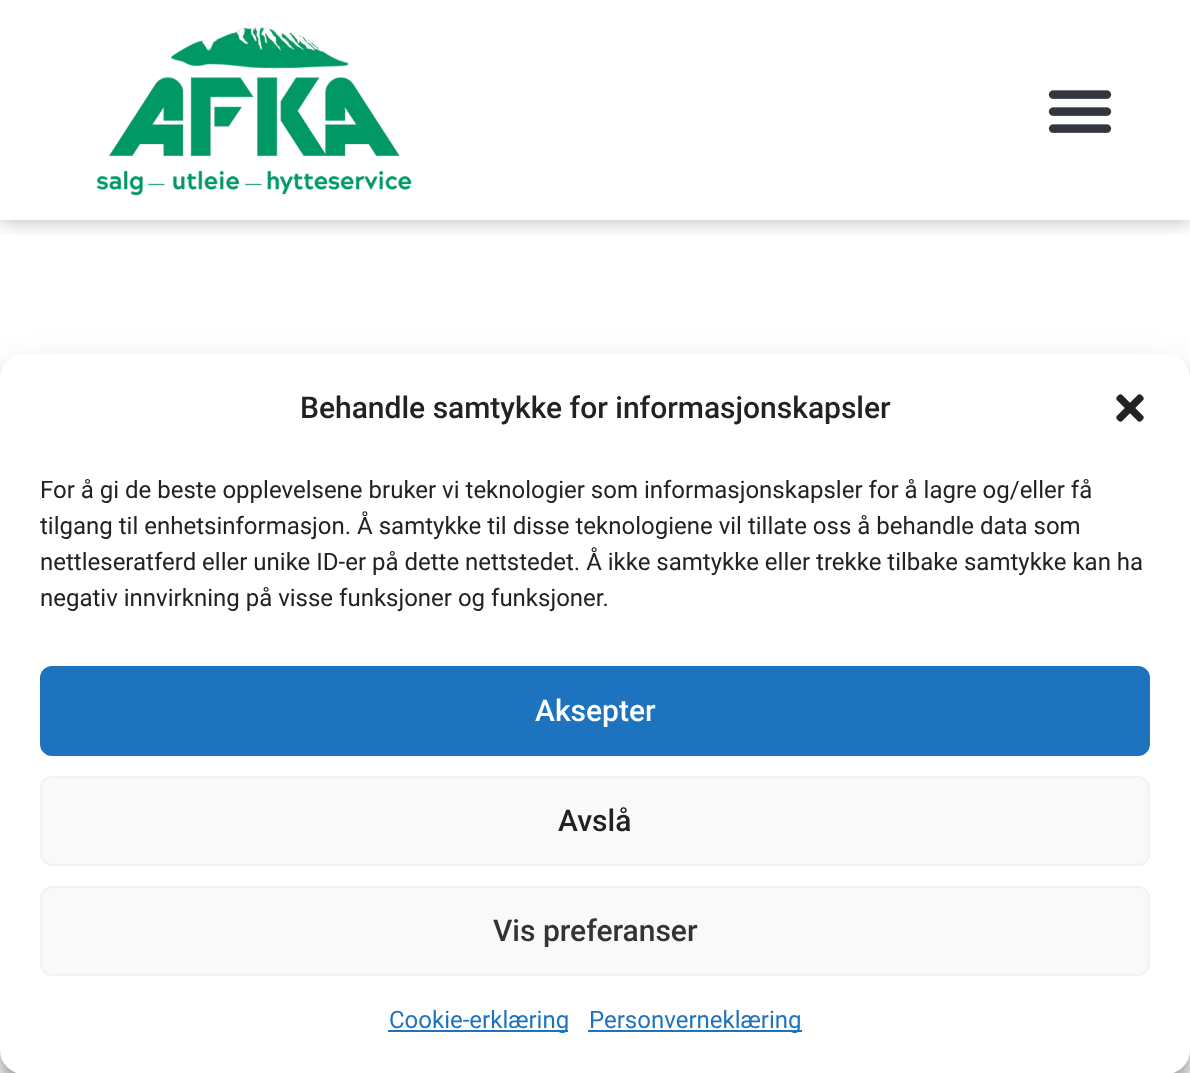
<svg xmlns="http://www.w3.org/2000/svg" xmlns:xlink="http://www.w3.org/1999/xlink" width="1190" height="1073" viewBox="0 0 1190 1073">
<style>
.cls-1{font:500 30px Roboto;fill:#222222}
.cls-2{font:24px Roboto;fill:#222222}
.cls-3{font:500 30px Roboto;fill:#ffffff}
.cls-4{font:500 30px Roboto;fill:#333333}
.cls-5{font:24px Roboto;fill:#1e73be}
</style>
<defs>
<clipPath id="clip1"><rect x="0" y="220" width="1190" height="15"/></clipPath>
</defs>
<rect width="100%" height="100%" fill="#ffffff"/>
<g clip-path="url(#clip1)">
<rect fill="#000000" fill-opacity="0.3" filter="blur(10px)" x="0" y="0" width="1190" height="220"/>
</g>
<image xlink:href="image0.png" x="96" y="27" width="316" height="169"/>
<image xlink:href="image1.png" x="1048" y="90" width="64" height="43"/>
<rect fill="#000000" fill-opacity="0.23" filter="blur(6px)" x="0" y="366" width="1190" height="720" rx="24"/>
<rect fill="#000000" fill-opacity="0.19" filter="blur(20px)" x="0" y="374" width="1190" height="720" rx="24"/>
<rect fill="#ffffff" x="0" y="354" width="1190" height="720" rx="24"/>
<image xlink:href="image2.png" x="1116" y="394" width="28" height="28"/>
<rect fill="#1e73be" stroke="#1e73be" stroke-width="2" x="41" y="667" width="1108" height="88" rx="11"/>
<rect fill="#f9f9f9" stroke="#f2f2f2" stroke-width="2" x="41" y="777" width="1108" height="88" rx="11"/>
<rect fill="#f9f9f9" stroke="#f2f2f2" stroke-width="2" x="41" y="887" width="1108" height="88" rx="11"/>
<rect fill="#1e73be" x="388" y="1030" width="180" height="2"/>
<rect fill="#1e73be" x="588" y="1030" width="214" height="2"/>
<text class="cls-1" x="300" y="418">Behandle samtykke for informasjonskapsler</text>
<text class="cls-2"><tspan x="40" y="498">For å gi de beste opplevelsene bruker vi teknologier som informasjonskapsler for å lagre og/eller få</tspan><tspan x="40" y="534">tilgang til enhetsinformasjon. Å samtykke til disse teknologiene vil tillate oss å behandle data som</tspan><tspan x="40" y="570">nettleseratferd eller unike ID-er på dette nettstedet. Å ikke samtykke eller trekke tilbake samtykke kan ha</tspan><tspan x="40" y="606">negativ innvirkning på visse funksjoner og funksjoner.</tspan></text>
<text class="cls-3" x="535" y="721">Aksepter</text>
<text class="cls-1" x="558" y="831">Avslå</text>
<text class="cls-4" x="493" y="941">Vis preferanser</text>
<text class="cls-5" x="389" y="1028">Cookie-erklæring</text>
<text class="cls-5" x="589" y="1028">Personverneklæring</text>
</svg>
